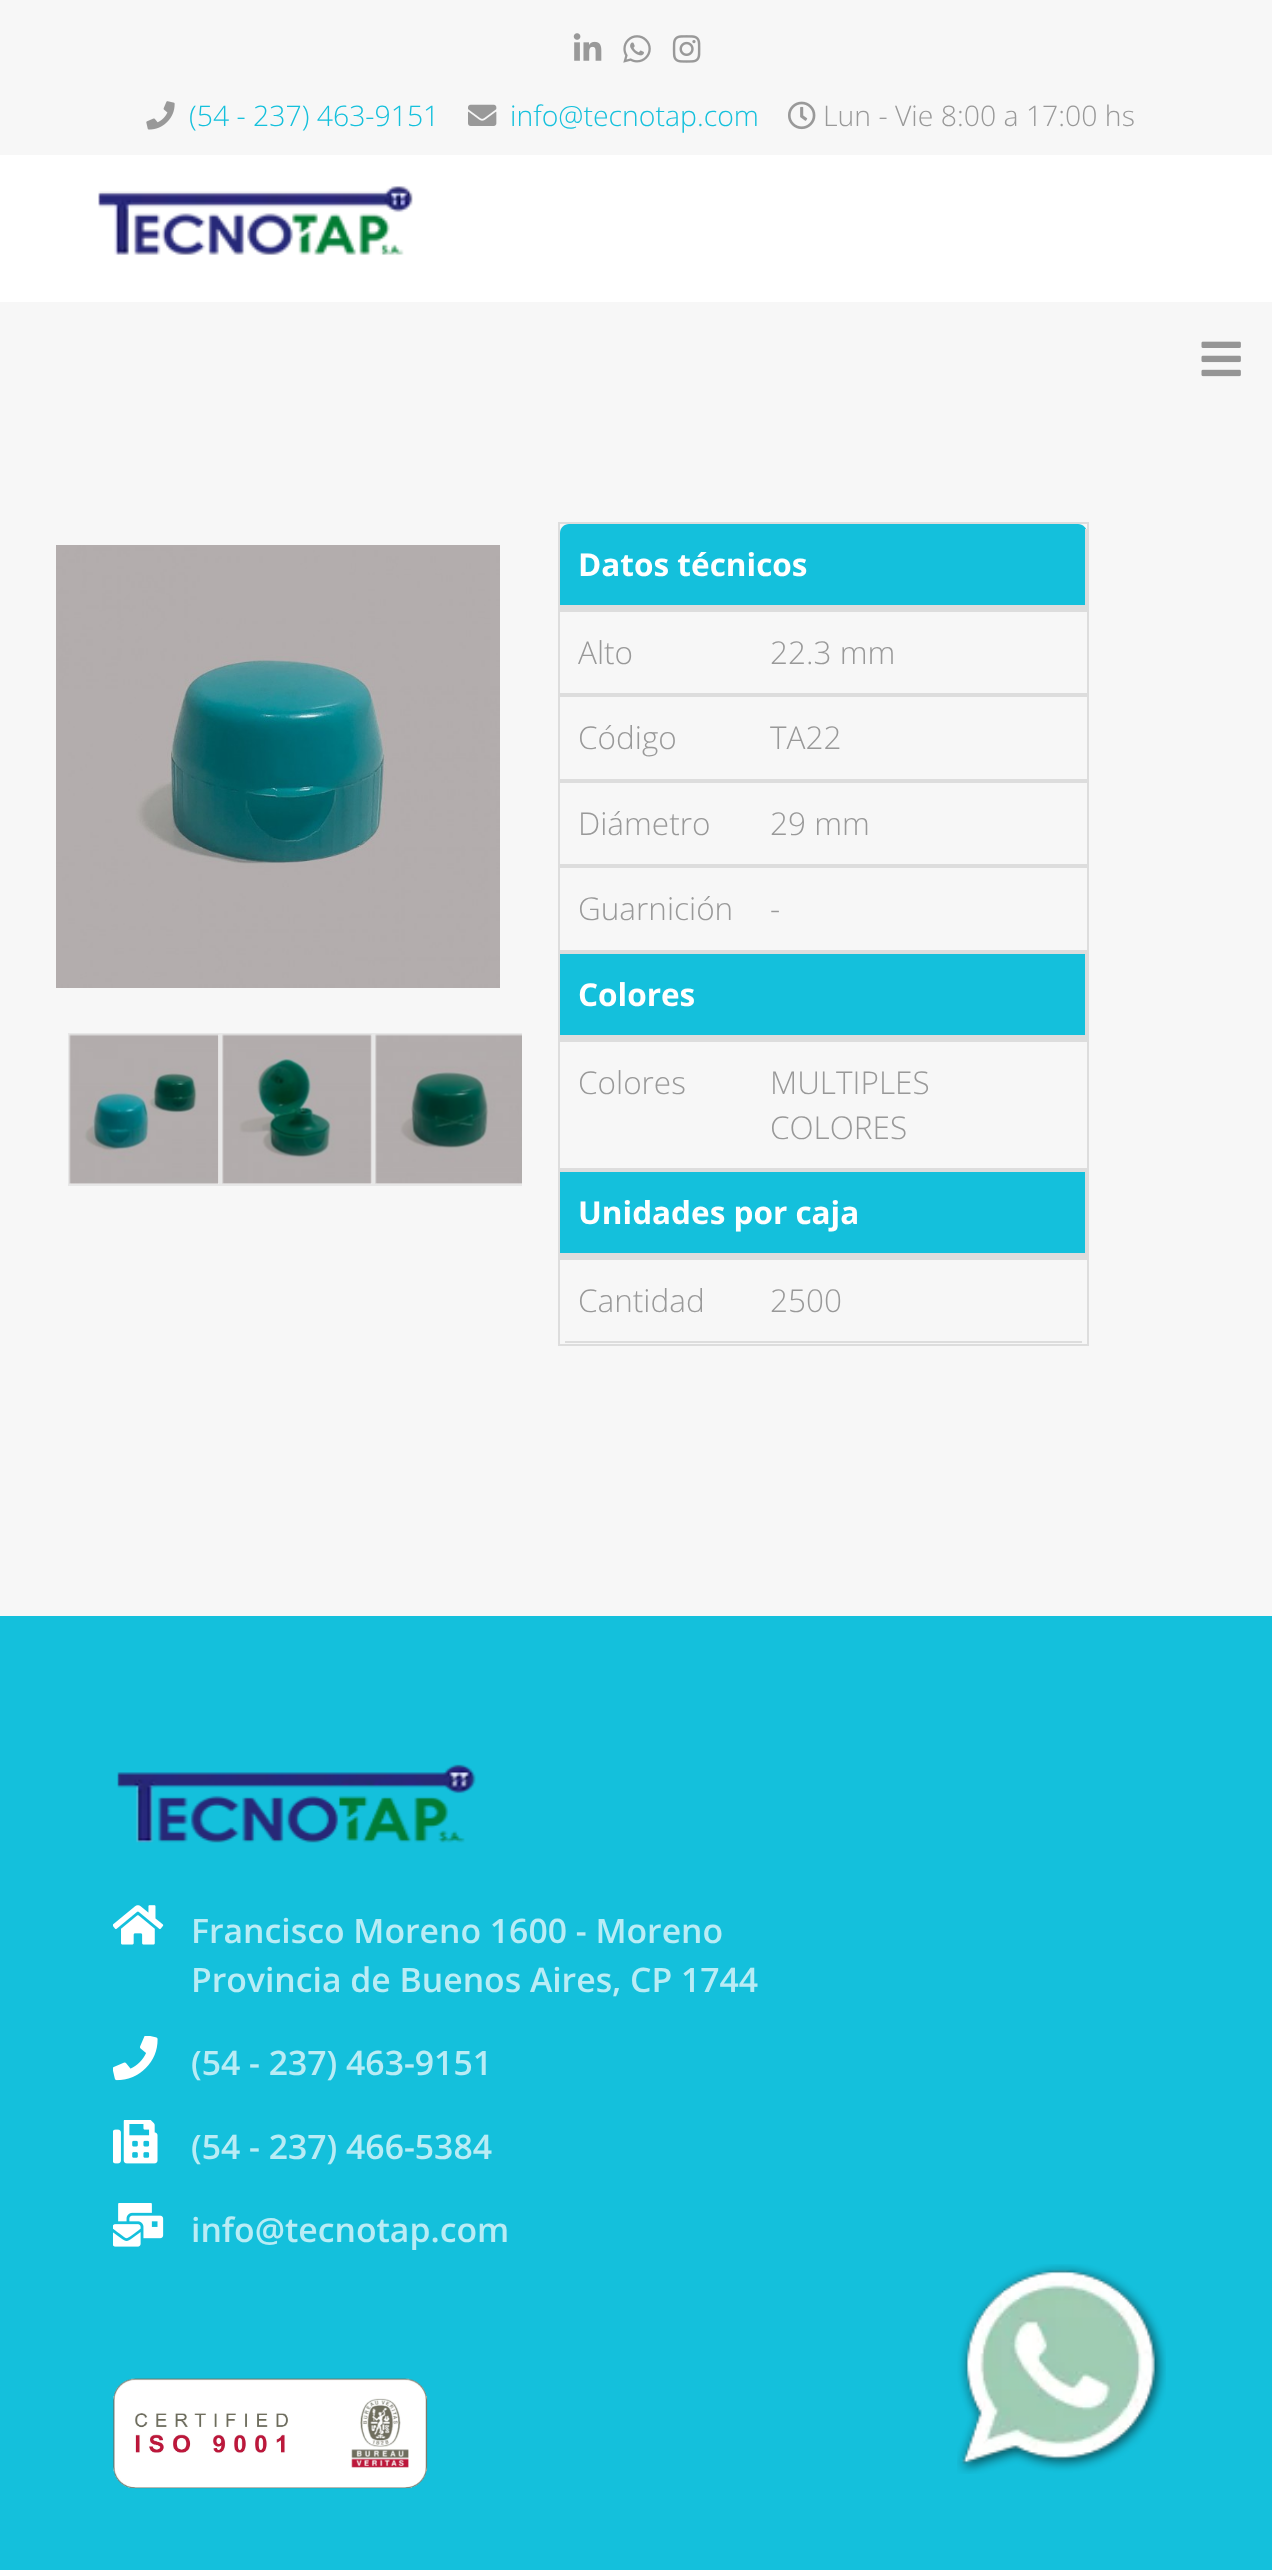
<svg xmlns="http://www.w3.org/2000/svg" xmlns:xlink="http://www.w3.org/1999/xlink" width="1272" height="2570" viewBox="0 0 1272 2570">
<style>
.cls-1{font:300 28.4px Open Sans;fill:#14c0dc}
.cls-2{font:300 28.4px Open Sans;fill:#999999}
.cls-3{font:bold 31.5px Open Sans;fill:#ffffff}
.cls-4{font:300 31.5px Open Sans;fill:#999999}
.cls-5{font:600 33.75px Open Sans;fill:#b9ecf5}
</style>
<defs>
<clipPath id="clip1"><rect x="68" y="1033" width="454" height="175"/></clipPath>
</defs>
<rect width="100%" height="100%" fill="#f7f7f7"/>
<image xlink:href="image0.png" x="573" y="33" width="29" height="28"/>
<image xlink:href="image1.png" x="623" y="35" width="28" height="28"/>
<image xlink:href="image2.png" x="672" y="35" width="29" height="28"/>
<image xlink:href="image3.png" x="146" y="101" width="29" height="29"/>
<image xlink:href="image4.png" x="468" y="104" width="29" height="22"/>
<image xlink:href="image5.png" x="788" y="101" width="28" height="29"/>
<rect fill="#ffffff" x="0" y="155" width="1272" height="147"/>
<image xlink:href="image6.png" x="98" y="186" width="315" height="69"/>
<image xlink:href="image7.png" x="1201" y="341" width="40" height="36"/>
<image xlink:href="image8.png" x="56" y="545" width="444" height="443"/>
<rect fill="none" stroke="#e7e7e7" stroke-width="2" x="69" y="1034" width="151" height="151"/>
<image xlink:href="image9.png" x="69" y="1034" width="150" height="150"/>
<rect fill="none" stroke="#e7e7e7" stroke-width="2" x="222" y="1034" width="151" height="151"/>
<image xlink:href="image10.png" x="222" y="1034" width="150" height="150"/>
<g clip-path="url(#clip1)">
<rect fill="none" stroke="#e7e7e7" stroke-width="2" x="375" y="1034" width="151" height="151"/>
</g>
<image xlink:href="image11.png" x="375" y="1034" width="147" height="150"/>
<rect fill="none" stroke="#dddddd" stroke-width="2" x="559" y="523" width="529" height="822"/>
<path fill="#14c0dc" d="M569 524H1078C1083 524 1087 528 1087 533V610H560V533C560 528 564 524 569 524Z"/>
<rect fill="#dddddd" x="1085" y="529" width="2" height="81"/>
<rect fill="#dddddd" x="560" y="605" width="527" height="5"/>
<rect fill="#dddddd" x="560" y="610" width="527" height="2"/>
<rect fill="#dddddd" x="560" y="693" width="527" height="2"/>
<rect fill="#dddddd" x="560" y="695" width="527" height="2"/>
<rect fill="#dddddd" x="560" y="779" width="527" height="2"/>
<rect fill="#dddddd" x="560" y="781" width="527" height="2"/>
<rect fill="#dddddd" x="560" y="864" width="527" height="2"/>
<rect fill="#dddddd" x="560" y="866" width="527" height="2"/>
<rect fill="#dddddd" x="560" y="950" width="527" height="4"/>
<rect fill="#14c0dc" x="560" y="954" width="525" height="81"/>
<rect fill="#dddddd" x="1085" y="952" width="2" height="88"/>
<rect fill="#dddddd" x="560" y="1035" width="527" height="5"/>
<rect fill="#dddddd" x="560" y="1040" width="527" height="2"/>
<rect fill="#dddddd" x="560" y="1168" width="527" height="4"/>
<rect fill="#14c0dc" x="560" y="1172" width="525" height="81"/>
<rect fill="#dddddd" x="1085" y="1170" width="2" height="88"/>
<rect fill="#dddddd" x="560" y="1253" width="527" height="5"/>
<rect fill="#dddddd" x="560" y="1258" width="527" height="2"/>
<rect fill="#dddddd" x="565" y="1341" width="517" height="2"/>
<rect fill="#14c0dc" x="0" y="1616" width="1272" height="954"/>
<image xlink:href="image12.png" x="117" y="1764" width="359" height="79"/>
<image xlink:href="image13.png" x="113" y="1905" width="51" height="40"/>
<image xlink:href="image14.png" x="113" y="2036" width="45" height="45"/>
<image xlink:href="image15.png" x="113" y="2120" width="45" height="44"/>
<image xlink:href="image16.png" x="113" y="2203" width="51" height="44"/>
<image xlink:href="image17.png" x="113" y="2378" width="315" height="111"/>
<image xlink:href="image18.png" x="957" y="2264" width="209" height="210"/>
<text class="cls-1" x="189" y="126">(54 - 237) 463-9151</text>
<text class="cls-1" x="510" y="126">info@tecnotap.com</text>
<text class="cls-2" x="823" y="126">Lun - Vie 8:00 a 17:00 hs</text>
<text class="cls-3" x="578" y="576">Datos técnicos</text>
<text class="cls-4" x="578" y="664">Alto</text>
<text class="cls-4" x="770" y="664">22.3 mm</text>
<text class="cls-4" x="578" y="749">Código</text>
<text class="cls-4" x="770" y="749">TA22</text>
<text class="cls-4" x="578" y="835">Diámetro</text>
<text class="cls-4" x="770" y="835">29 mm</text>
<text class="cls-4" x="578" y="920">Guarnición</text>
<text class="cls-4" x="770" y="920">-</text>
<text class="cls-3" x="578" y="1006">Colores</text>
<text class="cls-4" x="578" y="1094">Colores</text>
<text class="cls-4"><tspan x="770" y="1094">MULTIPLES</tspan><tspan x="770" y="1139">COLORES</tspan></text>
<text class="cls-3" x="578" y="1224">Unidades por caja</text>
<text class="cls-4" x="578" y="1312">Cantidad</text>
<text class="cls-4" x="770" y="1312">2500</text>
<text class="cls-5"><tspan x="191" y="1943">Francisco Moreno 1600 - Moreno</tspan><tspan x="191" y="1992">Provincia de Buenos Aires, CP 1744</tspan></text>
<text class="cls-5" x="191" y="2075">(54 - 237) 463-9151</text>
<text class="cls-5" x="191" y="2159">(54 - 237) 466-5384</text>
<text class="cls-5" x="191" y="2242">info@tecnotap.com</text>
</svg>
